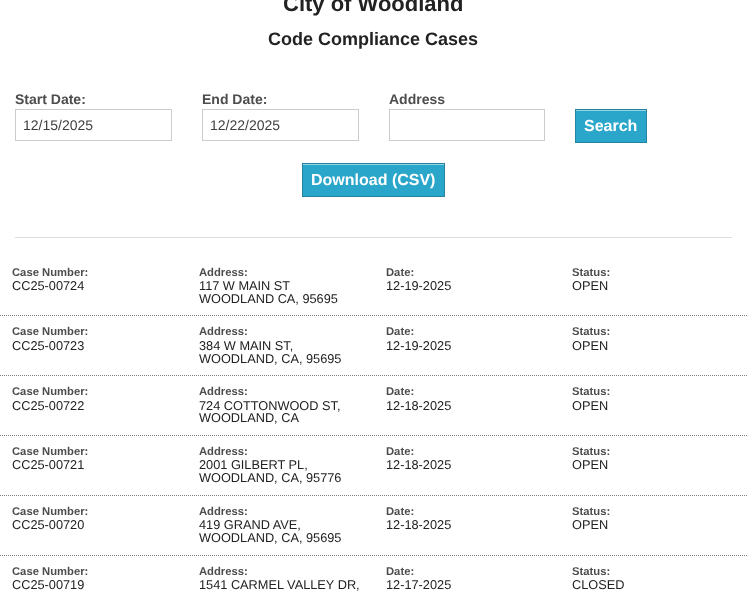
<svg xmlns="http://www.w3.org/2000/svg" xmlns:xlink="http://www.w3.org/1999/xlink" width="747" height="594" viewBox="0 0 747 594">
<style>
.cls-1{font:bold 22px Liberation Sans;fill:#222222}
.cls-2{font:bold 18px Liberation Sans;fill:#222222}
.cls-3{font:bold 14px Liberation Sans;fill:#4d4d4d}
.cls-4{font:14px Liberation Sans;fill:#404040}
.cls-5{font:bold 16px Liberation Sans;fill:#ffffff}
.cls-6{font:bold 11.25px Liberation Sans;fill:#4d4d4d}
.cls-7{font:12.75px Liberation Sans;fill:#222222}
</style>
<rect width="100%" height="100%" fill="#ffffff"/>
<rect fill="none" stroke="#cccccc" x="15.5" y="109.5" width="156" height="31"/>
<rect fill="none" stroke="#cccccc" x="202.5" y="109.5" width="156" height="31"/>
<rect fill="none" stroke="#cccccc" x="389.5" y="109.5" width="155" height="31"/>
<rect fill="#2ba6cb" x="576" y="111" width="70" height="31"/>
<rect fill="#95d3e5" x="576" y="110" width="70" height="1"/>
<rect fill="none" stroke="#2284a1" x="575.5" y="109.5" width="71" height="33"/>
<rect fill="#2ba6cb" x="303" y="165" width="141" height="31"/>
<rect fill="#95d3e5" x="303" y="164" width="141" height="1"/>
<rect fill="none" stroke="#2284a1" x="302.5" y="163.5" width="142" height="33"/>
<rect fill="#dddddd" x="15" y="237" width="717" height="1"/>
<path fill="none" stroke="#808080" stroke-dasharray="1 1" d="M0 315.5H747"/>
<path fill="none" stroke="#808080" stroke-dasharray="1 1" d="M0 375.5H747"/>
<path fill="none" stroke="#808080" stroke-dasharray="1 1" d="M0 435.5H747"/>
<path fill="none" stroke="#808080" stroke-dasharray="1 1" d="M0 495.5H747"/>
<path fill="none" stroke="#808080" stroke-dasharray="1 1" d="M0 555.5H747"/>
<text class="cls-1" x="283" y="11">City of Woodland</text>
<text class="cls-2" x="268" y="45">Code Compliance Cases</text>
<text class="cls-3" x="15" y="104">Start Date:</text>
<text class="cls-3" x="202" y="104">End Date:</text>
<text class="cls-3" x="389" y="104">Address</text>
<text class="cls-4" x="23" y="130">12/15/2025</text>
<text class="cls-4" x="210" y="130">12/22/2025</text>
<text class="cls-5" x="584" y="131">Search</text>
<text class="cls-5" x="311" y="185">Download (CSV)</text>
<text class="cls-6" x="12" y="276">Case Number:</text>
<text class="cls-7" x="12" y="290">CC25-00724</text>
<text class="cls-6" x="199" y="276">Address:</text>
<text class="cls-7"><tspan x="199" y="290">117 W MAIN ST</tspan><tspan x="199" y="303">WOODLAND CA, 95695</tspan></text>
<text class="cls-6" x="386" y="276">Date:</text>
<text class="cls-7" x="386" y="290">12-19-2025</text>
<text class="cls-6" x="572" y="276">Status:</text>
<text class="cls-7" x="572" y="290">OPEN</text>
<text class="cls-6" x="12" y="335">Case Number:</text>
<text class="cls-7" x="12" y="350">CC25-00723</text>
<text class="cls-6" x="199" y="335">Address:</text>
<text class="cls-7"><tspan x="199" y="350">384 W MAIN ST,</tspan><tspan x="199" y="363">WOODLAND, CA, 95695</tspan></text>
<text class="cls-6" x="386" y="335">Date:</text>
<text class="cls-7" x="386" y="350">12-19-2025</text>
<text class="cls-6" x="572" y="335">Status:</text>
<text class="cls-7" x="572" y="350">OPEN</text>
<text class="cls-6" x="12" y="395">Case Number:</text>
<text class="cls-7" x="12" y="410">CC25-00722</text>
<text class="cls-6" x="199" y="395">Address:</text>
<text class="cls-7"><tspan x="199" y="410">724 COTTONWOOD ST,</tspan><tspan x="199" y="422">WOODLAND, CA</tspan></text>
<text class="cls-6" x="386" y="395">Date:</text>
<text class="cls-7" x="386" y="410">12-18-2025</text>
<text class="cls-6" x="572" y="395">Status:</text>
<text class="cls-7" x="572" y="410">OPEN</text>
<text class="cls-6" x="12" y="455">Case Number:</text>
<text class="cls-7" x="12" y="469">CC25-00721</text>
<text class="cls-6" x="199" y="455">Address:</text>
<text class="cls-7"><tspan x="199" y="469">2001 GILBERT PL,</tspan><tspan x="199" y="482">WOODLAND, CA, 95776</tspan></text>
<text class="cls-6" x="386" y="455">Date:</text>
<text class="cls-7" x="386" y="469">12-18-2025</text>
<text class="cls-6" x="572" y="455">Status:</text>
<text class="cls-7" x="572" y="469">OPEN</text>
<text class="cls-6" x="12" y="515">Case Number:</text>
<text class="cls-7" x="12" y="529">CC25-00720</text>
<text class="cls-6" x="199" y="515">Address:</text>
<text class="cls-7"><tspan x="199" y="529">419 GRAND AVE,</tspan><tspan x="199" y="542">WOODLAND, CA, 95695</tspan></text>
<text class="cls-6" x="386" y="515">Date:</text>
<text class="cls-7" x="386" y="529">12-18-2025</text>
<text class="cls-6" x="572" y="515">Status:</text>
<text class="cls-7" x="572" y="529">OPEN</text>
<text class="cls-6" x="12" y="575">Case Number:</text>
<text class="cls-7" x="12" y="589">CC25-00719</text>
<text class="cls-6" x="199" y="575">Address:</text>
<text class="cls-7" x="199" y="589">1541 CARMEL VALLEY DR,</text>
<text class="cls-6" x="386" y="575">Date:</text>
<text class="cls-7" x="386" y="589">12-17-2025</text>
<text class="cls-6" x="572" y="575">Status:</text>
<text class="cls-7" x="572" y="589">CLOSED</text>
</svg>
